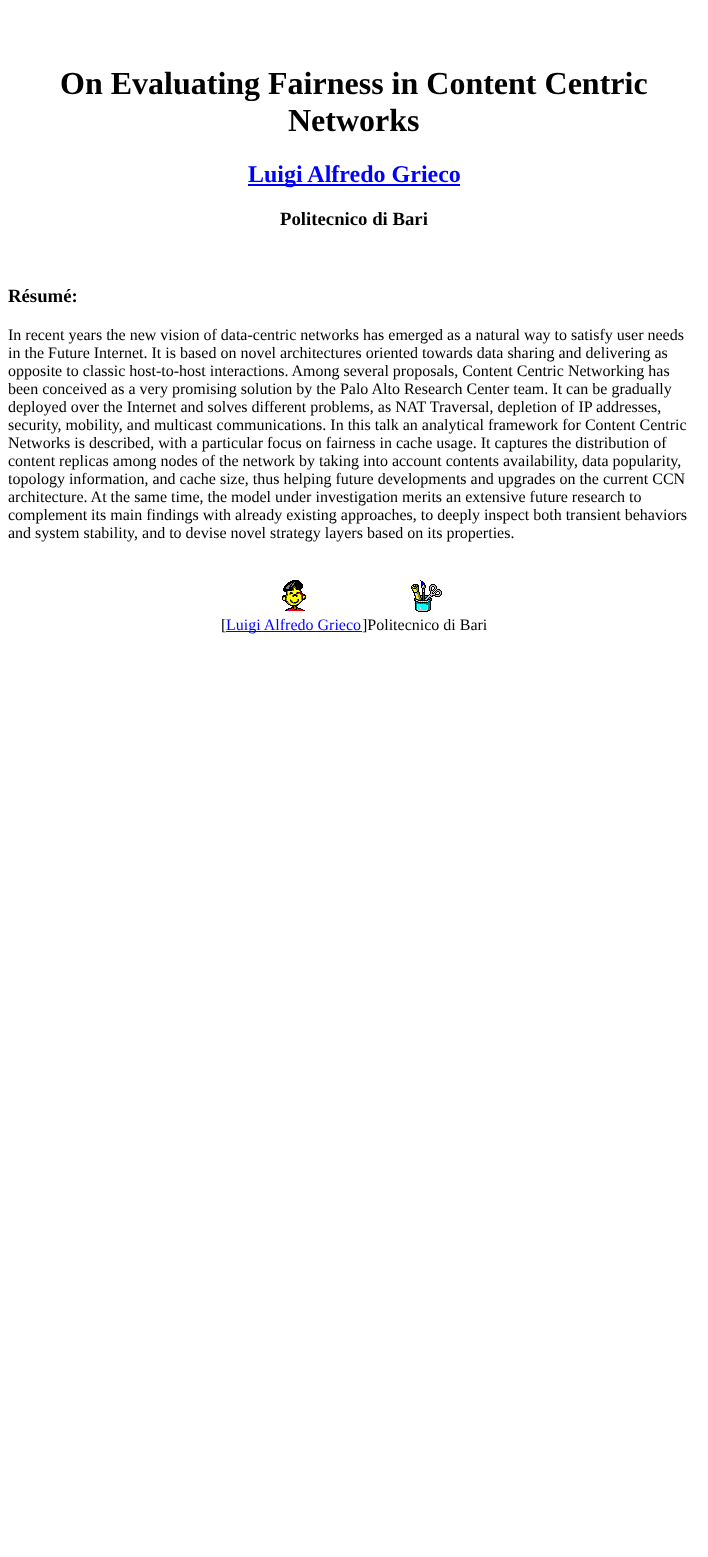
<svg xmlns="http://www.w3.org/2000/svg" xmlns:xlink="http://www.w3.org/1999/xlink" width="708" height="1557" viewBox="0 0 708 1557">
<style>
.cls-1{font:bold 32px Liberation Serif;fill:#000000}
.cls-2{font:bold 24px Liberation Serif;fill:#0000ff}
.cls-3{font:bold 18.75px Liberation Serif;fill:#000000}
.cls-4{font:16px Liberation Serif;fill:#000000}
.cls-5{font:16px Liberation Serif;fill:#0000ff}
</style>
<rect width="100%" height="100%" fill="#ffffff"/>
<rect fill="#0000ff" x="248" y="184" width="212" height="2"/>
<image xlink:href="image0.png" x="282" y="580" width="24" height="31"/>
<image xlink:href="image1.png" x="411" y="580" width="31" height="32"/>
<rect fill="#0000ff" x="226" y="631" width="136" height="1"/>
<text class="cls-1" x="60" y="94">On Evaluating Fairness in Content Centric</text>
<text class="cls-1" x="288" y="131">Networks</text>
<text class="cls-2" x="248" y="182">Luigi Alfredo Grieco</text>
<text class="cls-3" x="280" y="225">Politecnico di Bari</text>
<text class="cls-3" x="8" y="302">Résumé:</text>
<text class="cls-4"><tspan x="8" y="340">In recent years the new vision of data-centric networks has emerged as a natural way to satisfy user needs</tspan><tspan x="8" y="358">in the Future Internet. It is based on novel architectures oriented towards data sharing and delivering as</tspan><tspan x="8" y="376">opposite to classic host-to-host interactions. Among several proposals, Content Centric Networking has</tspan><tspan x="8" y="394">been conceived as a very promising solution by the Palo Alto Research Center team. It can be gradually</tspan><tspan x="8" y="412">deployed over the Internet and solves different problems, as NAT Traversal, depletion of IP addresses,</tspan><tspan x="8" y="430">security, mobility, and multicast communications. In this talk an analytical framework for Content Centric</tspan><tspan x="8" y="448">Networks is described, with a particular focus on fairness in cache usage. It captures the distribution of</tspan><tspan x="8" y="466">content replicas among nodes of the network by taking into account contents availability, data popularity,</tspan><tspan x="8" y="484">topology information, and cache size, thus helping future developments and upgrades on the current CCN</tspan><tspan x="8" y="502">architecture. At the same time, the model under investigation merits an extensive future research to</tspan><tspan x="8" y="520">complement its main findings with already existing approaches, to deeply inspect both transient behaviors</tspan><tspan x="8" y="538">and system stability, and to devise novel strategy layers based on its properties.</tspan></text>
<text class="cls-4" x="221" y="630">[</text>
<text class="cls-5" x="226" y="630">Luigi Alfredo Grieco</text>
<text class="cls-4" x="362" y="630">]Politecnico di Bari</text>
</svg>
